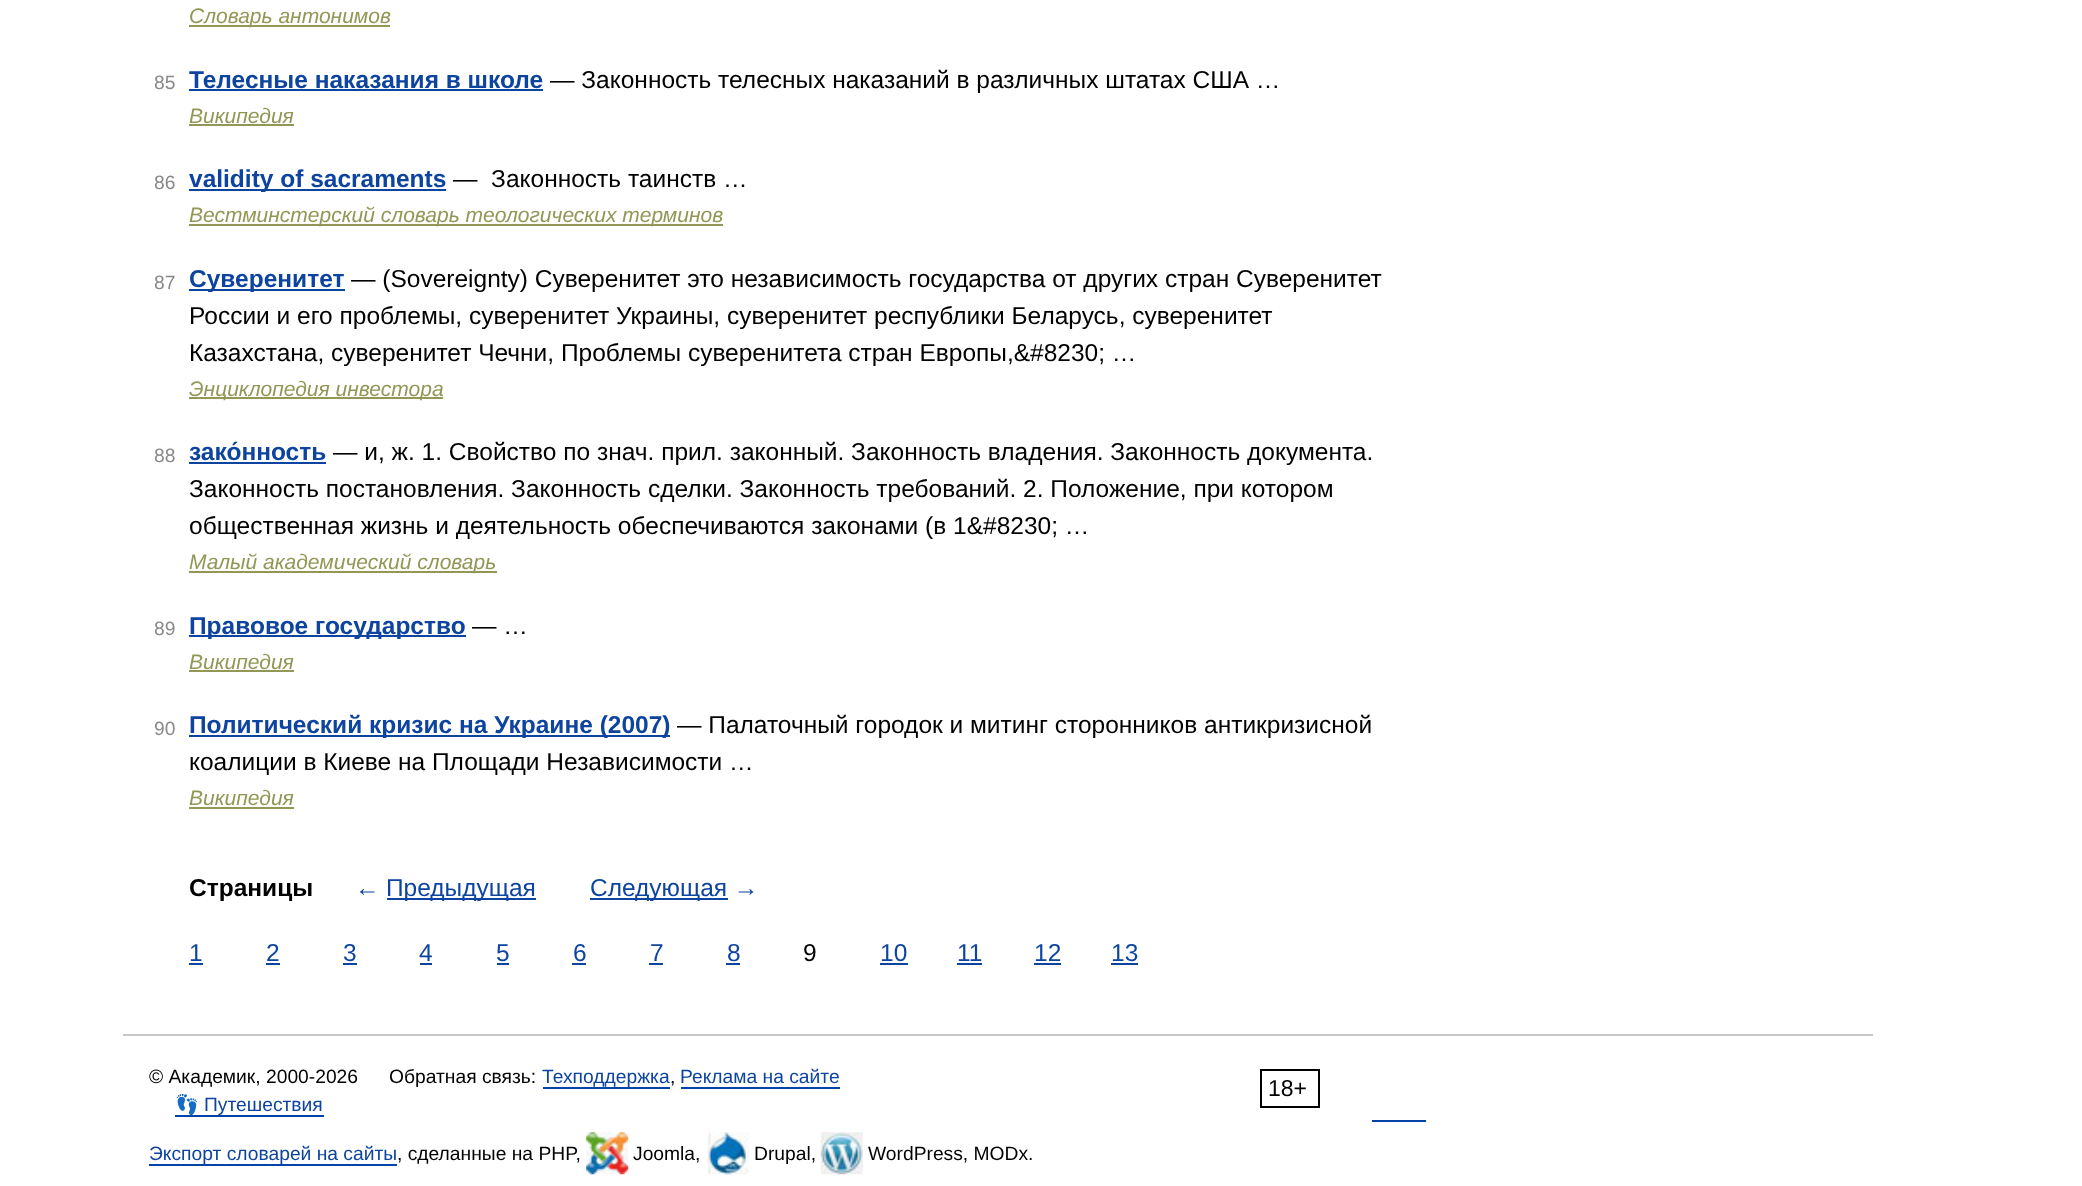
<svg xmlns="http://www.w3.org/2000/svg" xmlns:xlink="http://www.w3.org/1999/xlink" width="2082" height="1186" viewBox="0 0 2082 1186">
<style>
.cls-1{font:italic 21px Liberation Sans;fill:#939756}
.cls-2{font:19.25px Liberation Sans;fill:#898989}
.cls-3{font:bold 24.5px Liberation Sans;fill:#0d44a0}
.cls-4{font:24.5px Liberation Sans;fill:#000000}
.cls-5{font:bold 24.5px Liberation Sans;fill:#000000}
.cls-6{font:24.5px Liberation Sans;fill:#0d44a0}
.cls-7{font:19.25px Liberation Sans;fill:#000000}
.cls-8{font:19.25px Liberation Sans;fill:#0d44a0}
.cls-9{font:23px Liberation Sans;fill:#000000}
.cls-10{font:19.25px Noto Color Emoji;fill:#0d44a0}
</style>
<rect width="100%" height="100%" fill="#ffffff"/>
<rect fill="#939756" x="189" y="25" width="201" height="2"/>
<rect fill="#0d44a0" x="189" y="89" width="354" height="2"/>
<rect fill="#939756" x="189" y="124" width="105" height="2"/>
<rect fill="#0d44a0" x="189" y="189" width="257" height="2"/>
<rect fill="#939756" x="189" y="224" width="534" height="2"/>
<rect fill="#0d44a0" x="189" y="289" width="156" height="2"/>
<rect fill="#939756" x="189" y="397" width="254" height="2"/>
<rect fill="#0d44a0" x="189" y="462" width="137" height="2"/>
<rect fill="#939756" x="189" y="571" width="308" height="2"/>
<rect fill="#0d44a0" x="189" y="635" width="277" height="2"/>
<rect fill="#939756" x="189" y="670" width="105" height="2"/>
<rect fill="#0d44a0" x="189" y="735" width="481" height="2"/>
<rect fill="#939756" x="189" y="807" width="105" height="2"/>
<rect fill="#0d44a0" x="387" y="898" width="149" height="2"/>
<rect fill="#0d44a0" x="590" y="898" width="138" height="2"/>
<rect fill="#0d44a0" x="189" y="963" width="14" height="2"/>
<rect fill="#0d44a0" x="266" y="963" width="14" height="2"/>
<rect fill="#0d44a0" x="343" y="963" width="14" height="2"/>
<rect fill="#0d44a0" x="420" y="963" width="12" height="2"/>
<rect fill="#0d44a0" x="497" y="963" width="12" height="2"/>
<rect fill="#0d44a0" x="572" y="963" width="14" height="2"/>
<rect fill="#0d44a0" x="649" y="963" width="14" height="2"/>
<rect fill="#0d44a0" x="726" y="963" width="14" height="2"/>
<rect fill="#0d44a0" x="880" y="963" width="28" height="2"/>
<rect fill="#0d44a0" x="957" y="963" width="25" height="2"/>
<rect fill="#0d44a0" x="1034" y="963" width="27" height="2"/>
<rect fill="#0d44a0" x="1111" y="963" width="27" height="2"/>
<rect fill="#c7c7c7" x="123" y="1034" width="1750" height="2"/>
<rect fill="#0044aa" x="543" y="1087" width="127" height="2"/>
<rect fill="#0044aa" x="681" y="1087" width="159" height="2"/>
<rect fill="none" stroke="#000000" stroke-width="2" x="1261" y="1070" width="58" height="37"/>
<rect fill="#0044aa" x="175" y="1115" width="149" height="2"/>
<rect fill="#0044aa" x="1372" y="1120" width="54" height="2"/>
<rect fill="#0044aa" x="149" y="1164" width="248" height="2"/>
<image xlink:href="image0.png" x="586" y="1132" width="43" height="43"/>
<image xlink:href="image1.png" x="707" y="1132" width="42" height="43"/>
<image xlink:href="image2.png" x="820" y="1132" width="43" height="43"/>
<text class="cls-1" x="189" y="23">Словарь антонимов</text>
<text class="cls-2" x="154" y="89">85</text>
<text class="cls-3" x="189" y="88">Телесные наказания в школе</text>
<text class="cls-4" x="550" y="88">— Законность телесных наказаний в различных штатах США …</text>
<text class="cls-1" x="189" y="123">Википедия</text>
<text class="cls-2" x="154" y="189">86</text>
<text class="cls-3" x="189" y="187">validity of sacraments</text>
<text class="cls-4" xml:space="preserve" x="453" y="187">—  Законность таинств …</text>
<text class="cls-1" x="189" y="222">Вестминстерский словарь теологических терминов</text>
<text class="cls-2" x="154" y="289">87</text>
<text class="cls-3" x="189" y="287">Суверенитет</text>
<text class="cls-4" x="351" y="287">— (Sovereignty) Суверенитет это независимость государства от других стран Суверенитет</text>
<text class="cls-4"><tspan x="189" y="324">России и его проблемы, суверенитет Украины, суверенитет республики Беларусь, суверенитет</tspan><tspan x="189" y="361">Казахстана, суверенитет Чечни, Проблемы суверенитета стран Европы,&amp;#8230; …</tspan></text>
<text class="cls-1" x="189" y="396">Энциклопедия инвестора</text>
<text class="cls-2" x="154" y="462">88</text>
<text class="cls-3" x="189" y="460">зако́нность</text>
<text class="cls-4" x="333" y="460">— и, ж. 1. Свойство по знач. прил. законный. Законность владения. Законность документа.</text>
<text class="cls-4"><tspan x="189" y="497">Законность постановления. Законность сделки. Законность требований. 2. Положение, при котором</tspan><tspan x="189" y="534">общественная жизнь и деятельность обеспечиваются законами (в 1&amp;#8230; …</tspan></text>
<text class="cls-1" x="189" y="569">Малый академический словарь</text>
<text class="cls-2" x="154" y="635">89</text>
<text class="cls-3" x="189" y="634">Правовое государство</text>
<text class="cls-4" x="472" y="634">— …</text>
<text class="cls-1" x="189" y="669">Википедия</text>
<text class="cls-2" x="154" y="735">90</text>
<text class="cls-3" x="189" y="733">Политический кризис на Украине (2007)</text>
<text class="cls-4" x="677" y="733">— Палаточный городок и митинг сторонников антикризисной</text>
<text class="cls-4" x="189" y="770">коалиции в Киеве на Площади Независимости …</text>
<text class="cls-1" x="189" y="805">Википедия</text>
<text class="cls-5" x="189" y="896">Страницы</text>
<text class="cls-6" x="355" y="896">←</text>
<text class="cls-6" x="386" y="896">Предыдущая</text>
<text class="cls-6" x="590" y="896">Следующая →</text>
<text class="cls-6" x="189" y="961">1</text>
<text class="cls-6" x="266" y="961">2</text>
<text class="cls-6" x="343" y="961">3</text>
<text class="cls-6" x="419" y="961">4</text>
<text class="cls-6" x="496" y="961">5</text>
<text class="cls-6" x="573" y="961">6</text>
<text class="cls-6" x="650" y="961">7</text>
<text class="cls-6" x="727" y="961">8</text>
<text class="cls-4" x="803" y="961">9</text>
<text class="cls-6" x="880" y="961">10</text>
<text class="cls-6" x="957" y="961">11</text>
<text class="cls-6" x="1034" y="961">12</text>
<text class="cls-6" x="1111" y="961">13</text>
<text class="cls-7" x="149" y="1083">© Академик, 2000-2026</text>
<text class="cls-7" x="389" y="1083">Обратная связь:</text>
<text class="cls-8" x="542" y="1083">Техподдержка</text>
<text class="cls-7" x="670" y="1083">,</text>
<text class="cls-8" x="680" y="1083">Реклама на сайте</text>
<text class="cls-9" x="1268" y="1096">18+</text>
<text class="cls-10" x="175" y="1111">👣</text>
<text class="cls-8" x="204" y="1111">Путешествия</text>
<text class="cls-8" x="149" y="1160">Экспорт словарей на сайты</text>
<text class="cls-7" x="397" y="1160">, сделанные на PHP,</text>
<text class="cls-7" x="633" y="1160">Joomla,</text>
<text class="cls-7" x="754" y="1160">Drupal,</text>
<text class="cls-7" x="868" y="1160">WordPress, MODx.</text>
</svg>
